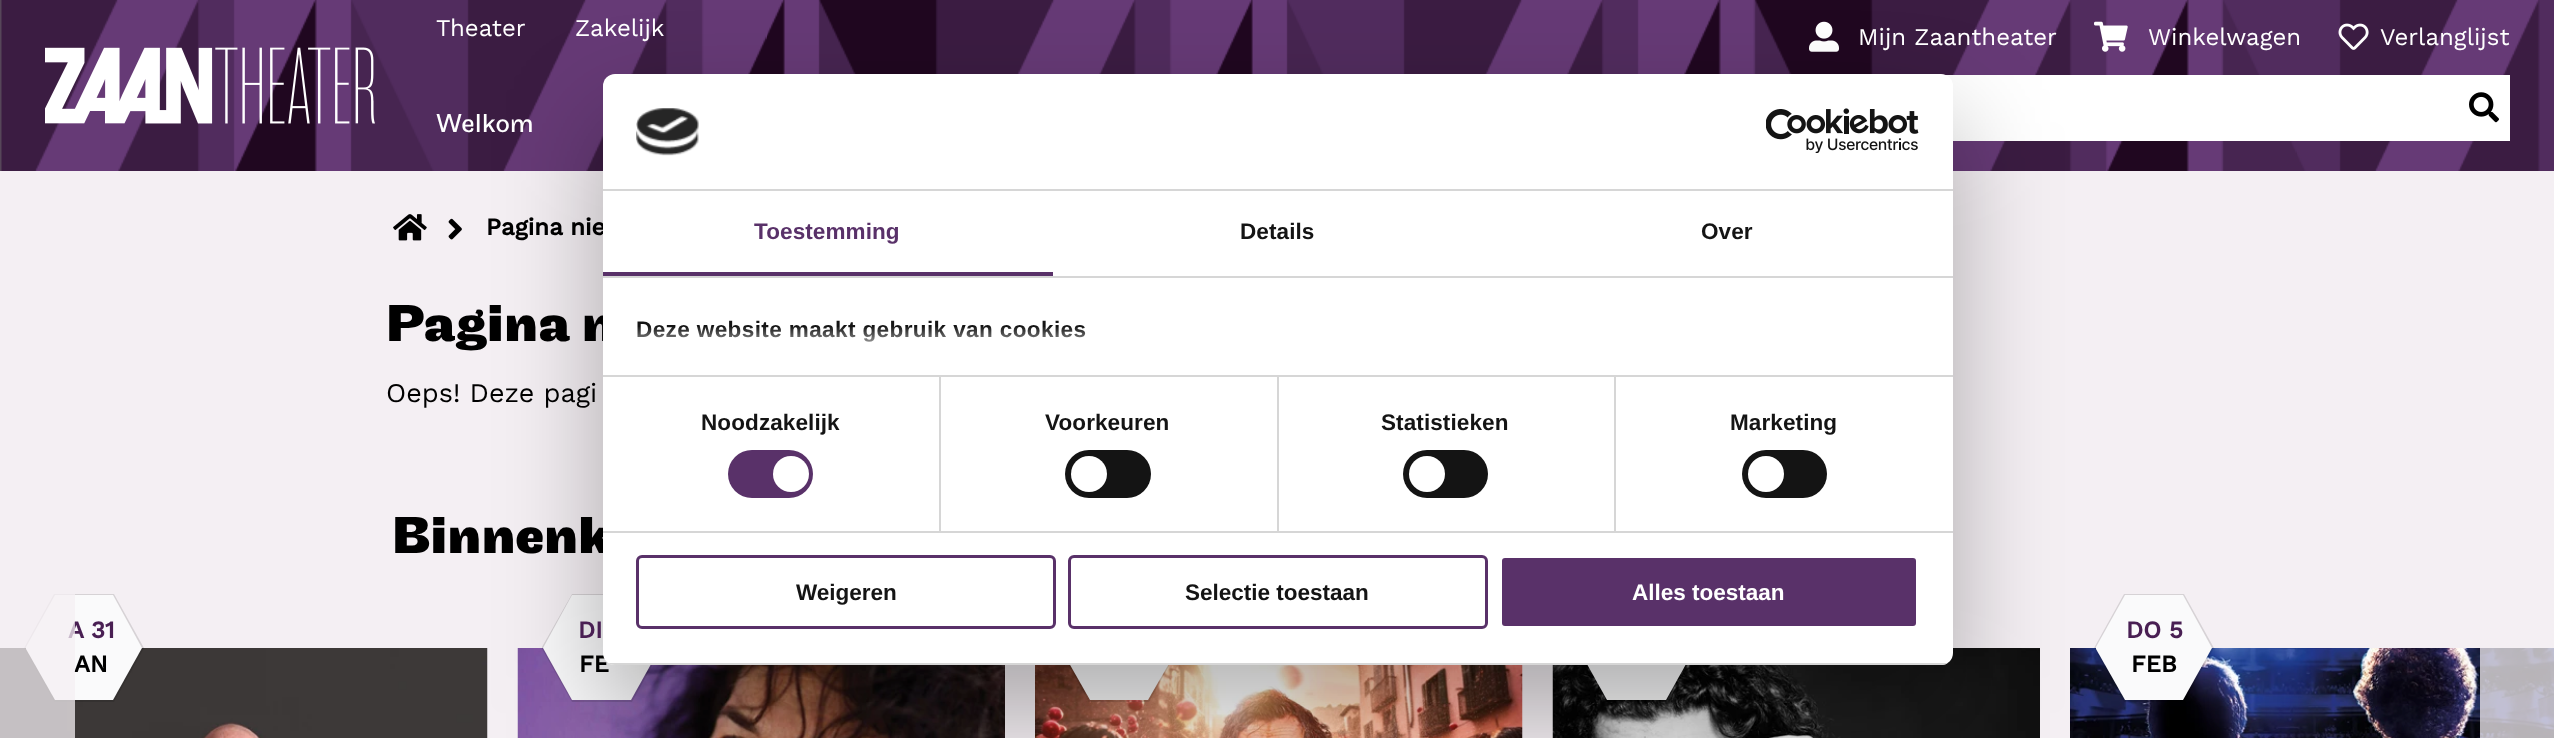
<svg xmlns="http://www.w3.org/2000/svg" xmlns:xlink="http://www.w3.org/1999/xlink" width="2554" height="738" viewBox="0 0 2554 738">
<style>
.cls-1{font:24px Work Sans;fill:#ffffff}
.cls-2{font:27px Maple;fill:#ffffff}
.cls-3{font:bold 24px Work Sans;fill:#000000}
.cls-4{font:bold 54px Maple;fill:#000000}
.cls-5{font:27px Work Sans;fill:#000000}
.cls-6{font:bold 24px Work Sans;fill:#491f53}
.cls-7{font:bold 22.5px Liberation Sans;letter-spacing:0.1px;fill:#593169}
.cls-8{font:bold 22.5px Liberation Sans;letter-spacing:0.1px;fill:#141414}
.cls-9{font:bold 22.5px Liberation Sans;letter-spacing:0.4px;fill:#141414}
.cls-10{font:bold 22.5px Liberation Sans;fill:#141414}
.cls-11{font:bold 22.5px Liberation Sans;fill:#ffffff}
</style>
<defs>
<linearGradient id="g1" gradientUnits="userSpaceOnUse" x1="1262" y1="375" x2="1262" y2="326"><stop offset="0" stop-color="#ffffff"/><stop offset="0.5" stop-color="#ffffff" stop-opacity="0.8"/><stop offset="1" stop-color="#ffffff" stop-opacity="0"/></linearGradient>
<clipPath id="clip1"><rect x="603" y="74" width="1350" height="591" rx="12"/></clipPath>
</defs>
<rect width="100%" height="100%" fill="#f4eff3"/>
<image xlink:href="image0.png" x="0" y="0" width="2554" height="171"/>
<image xlink:href="image1.png" x="1809" y="21" width="30" height="31"/>
<image xlink:href="image2.png" x="2094" y="21" width="34" height="31"/>
<image xlink:href="image3.png" x="2338" y="23" width="31" height="27"/>
<rect fill="#ffffff" x="1945" y="75" width="565" height="66"/>
<image xlink:href="image4.png" x="2469" y="92" width="30" height="31"/>
<image xlink:href="image5.png" x="45" y="47" width="330" height="77"/>
<image xlink:href="image6.png" x="393" y="214" width="34" height="27"/>
<image xlink:href="image7.png" x="448" y="218" width="14" height="22"/>
<image xlink:href="image8.png" x="0" y="648" width="488" height="90"/>
<path fill="#000000" fill-opacity="0.12" d="M54 594L24 648L54 702H114L144 648L114 594Z"/>
<path fill="#fafafb" d="M55 595H113L142 648L113 700H55L26 649V647Z"/>
<image xlink:href="image9.png" x="517" y="648" width="488" height="90"/>
<path fill="#000000" fill-opacity="0.12" d="M572 594H632L662 648L632 702H572L542 649V647Z"/>
<path fill="#fafafb" d="M572 595L543 648L572 700H631L660 648L631 595Z"/>
<image xlink:href="image10.png" x="1035" y="665" width="488" height="73"/>
<path fill="#000000" fill-opacity="0.12" d="M1089 594L1059 648L1089 702H1149L1179 648L1149 594Z"/>
<path fill="#fafafb" d="M1090 595H1148L1178 648L1148 700H1090L1061 649V647Z"/>
<image xlink:href="image11.png" x="1552" y="648" width="488" height="90"/>
<path fill="#000000" fill-opacity="0.12" d="M1606 594H1666L1696 648L1666 702H1606L1577 649V647Z"/>
<path fill="#fafafb" d="M1607 595L1578 648L1607 700H1666L1695 648L1666 595Z"/>
<image xlink:href="image12.png" x="2070" y="648" width="484" height="90"/>
<path fill="#000000" fill-opacity="0.12" d="M2124 594L2094 648L2124 702H2184L2214 648L2184 594Z"/>
<path fill="#fafafb" d="M2125 595H2183L2212 648L2183 700H2125L2096 649V647Z"/>
<rect fill="#f4eff3" fill-opacity="0.75" x="2480" y="648" width="74" height="90"/>
<rect fill="#000000" fill-opacity="0.3" filter="blur(51px)" x="603" y="122" width="1350" height="591" rx="12"/>
<text class="cls-1" x="436" y="36">Theater</text>
<text class="cls-1" x="575" y="36">Zakelijk</text>
<text class="cls-2" x="436" y="132">Welkom</text>
<text class="cls-1" x="1858" y="45">Mijn Zaantheater</text>
<text class="cls-1" x="2148" y="45">Winkelwagen</text>
<text class="cls-1" x="2380" y="45">Verlanglijst</text>
<text class="cls-3" x="486" y="235">Pagina nie</text>
<text class="cls-4" x="386" y="341">Pagina n</text>
<text class="cls-5" x="386" y="402">Oeps! Deze pagi</text>
<text class="cls-4" x="392" y="553">Binnenk</text>
<text class="cls-6" x="68" y="638">A 31</text>
<text class="cls-3" x="74" y="672">AN</text>
<rect fill="#f4eff3" fill-opacity="0.75" x="0" y="594" width="75" height="144"/>
<text class="cls-6" x="578" y="638">DI</text>
<text class="cls-3" x="579" y="672">FE</text>
<text class="cls-6" x="2126" y="638">DO 5</text>
<text class="cls-3" x="2131" y="672">FEB</text>
<rect fill="#ffffff" x="603" y="74" width="1350" height="591" rx="12"/>
<rect fill="#d6d6d6" x="603" y="189" width="1350" height="2"/>
<image xlink:href="image13.png" x="636" y="108" width="63" height="48"/>
<image xlink:href="image14.png" x="1766" y="108" width="153" height="45"/>
<rect fill="#d6d6d6" x="603" y="276" width="1350" height="2"/>
<rect fill="#593169" x="603" y="272" width="450" height="4"/>
<text class="cls-7" x="754" y="239">Toestemming</text>
<text class="cls-8" x="1240" y="239">Details</text>
<text class="cls-8" x="1701" y="239">Over</text>
<rect fill="#d6d6d6" x="603" y="375" width="1350" height="2"/>
<text class="cls-9" x="636" y="337">Deze website maakt gebruik van cookies</text>
<rect fill="url(#g1)" x="637" y="327" width="448" height="15"/>
<rect fill="#d6d6d6" x="603" y="531" width="1350" height="2"/>
<rect fill="#d6d6d6" x="939" y="377" width="2" height="154"/>
<text class="cls-8" x="701" y="430">Noodzakelijk</text>
<rect fill="#593169" x="728" y="450" width="85" height="48" rx="24"/>
<circle fill="#ffffff" cx="791" cy="474" r="18"/>
<rect fill="#d6d6d6" x="1277" y="377" width="2" height="154"/>
<text class="cls-8" x="1045" y="430">Voorkeuren</text>
<rect fill="#141414" x="1065" y="450" width="86" height="48" rx="24"/>
<circle fill="#ffffff" cx="1089" cy="474" r="18"/>
<rect fill="#d6d6d6" x="1614" y="377" width="2" height="154"/>
<text class="cls-8" x="1381" y="430">Statistieken</text>
<rect fill="#141414" x="1403" y="450" width="85" height="48" rx="24"/>
<circle fill="#ffffff" cx="1427" cy="474" r="18"/>
<text class="cls-8" x="1730" y="430">Marketing</text>
<rect fill="#141414" x="1742" y="450" width="85" height="48" rx="24"/>
<circle fill="#ffffff" cx="1766" cy="474" r="18"/>
<g clip-path="url(#clip1)">
<rect fill="#d6d6d6" x="603" y="663" width="1350" height="2"/>
</g>
<rect fill="none" stroke="#593169" stroke-width="3" x="637.5" y="556.5" width="417" height="71" rx="4.5"/>
<text class="cls-10" x="796" y="600">Weigeren</text>
<rect fill="none" stroke="#593169" stroke-width="3" x="1069.5" y="556.5" width="417" height="71" rx="4.5"/>
<text class="cls-10" x="1185" y="600">Selectie toestaan</text>
<rect fill="#593169" stroke="#ffffff" stroke-width="3" x="1500.5" y="556.5" width="417" height="71" rx="4.5"/>
<text class="cls-11" x="1632" y="600">Alles toestaan</text>
</svg>
